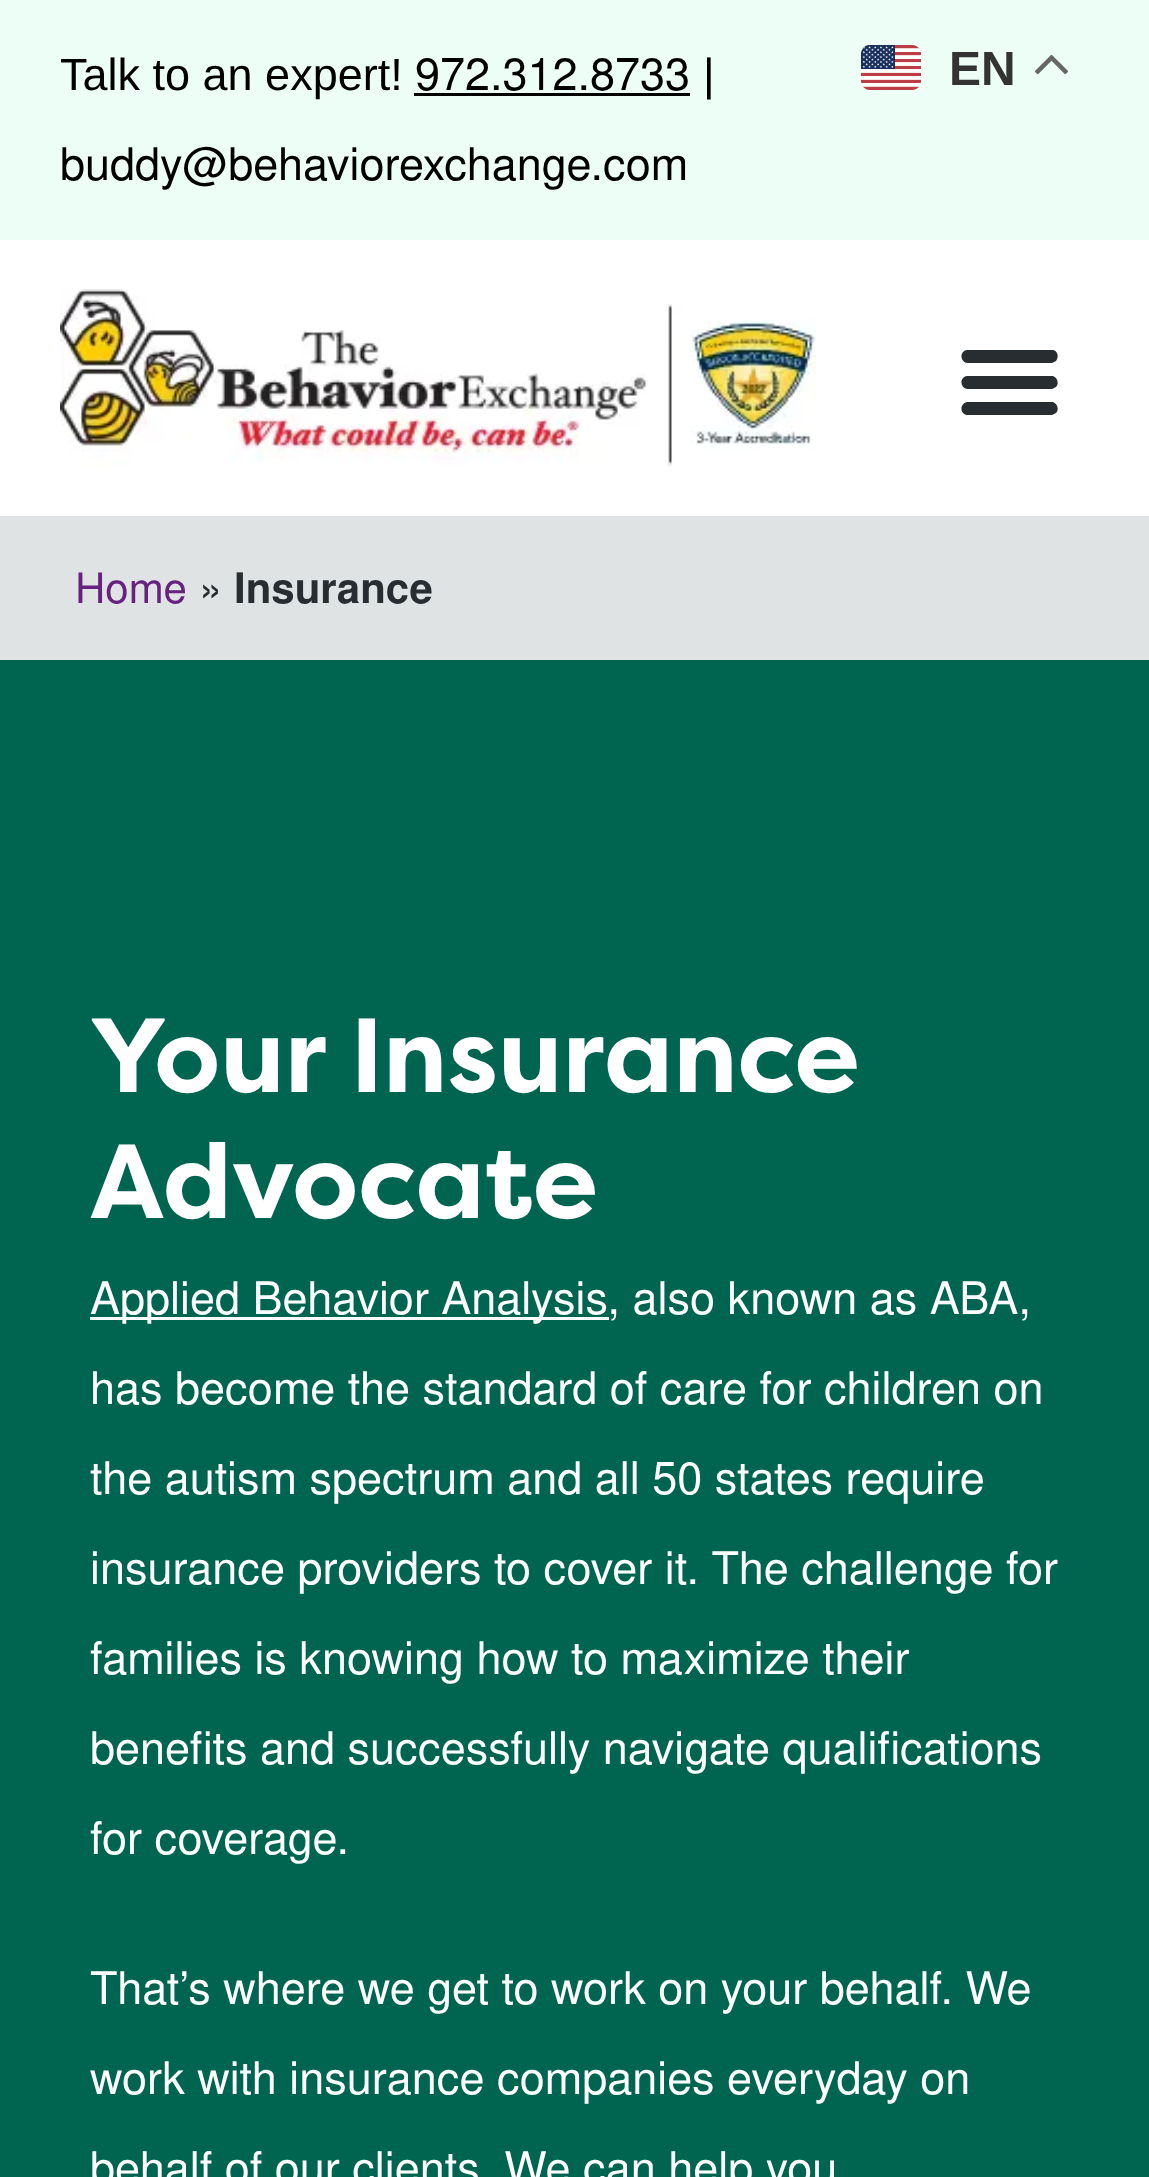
<svg xmlns="http://www.w3.org/2000/svg" xmlns:xlink="http://www.w3.org/1999/xlink" width="1149" height="2177" viewBox="0 0 1149 2177">
<style>
.cls-1{font:45px Liberation Sans;fill:#000000}
.cls-2{font:45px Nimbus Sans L;fill:#000000}
.cls-3{font:bold 48px Liberation Sans;fill:#333333}
.cls-4{font:42px Nimbus Sans L;fill:#66227e}
.cls-5{font:42px Nimbus Sans L;fill:#272d31}
.cls-6{font:bold 42px Nimbus Sans L;fill:#272d31}
.cls-7{font:bold 105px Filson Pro;fill:#ffffff}
.cls-8{font:45px Nimbus Sans L;fill:#ffffff}
</style>
<rect width="100%" height="100%" fill="#ffffff"/>
<rect fill="#ecfef5" x="0" y="0" width="1149" height="240"/>
<rect fill="#000000" x="414" y="93" width="276" height="3"/>
<image xlink:href="image0.png" x="861" y="45" width="60" height="45"/>
<image xlink:href="image1.png" x="1035" y="54" width="33" height="21"/>
<image xlink:href="image2.png" x="60" y="289" width="756" height="178"/>
<path fill="#272d31" d="M968 363H1052L1056 361C1059 357 1058 351 1053 350H967C959 351 960 363 968 363ZM968 389H1052L1056 387C1059 384 1058 378 1053 376H967C959 377 960 389 968 389ZM968 415H1052L1056 413C1059 410 1058 404 1053 402H967C959 404 960 415 968 415Z"/>
<rect fill="#dfe3e4" x="0" y="516" width="1149" height="144"/>
<rect fill="#006550" x="0" y="660" width="1149" height="1517"/>
<rect fill="#ffffff" x="90" y="1317" width="519" height="3"/>
<text class="cls-1" x="60" y="90">Talk to an expert!</text>
<text class="cls-2" x="415" y="90">972.312.8733</text>
<text class="cls-1" x="703" y="90">|</text>
<text class="cls-2" x="60" y="180">buddy@behaviorexchange.com</text>
<text class="cls-3" x="949" y="85">EN</text>
<text class="cls-4" x="75" y="603">Home</text>
<text class="cls-5" x="199" y="603">»</text>
<text class="cls-6" x="234" y="603">Insurance</text>
<text class="cls-7"><tspan x="90" y="1092">Your Insurance</tspan><tspan x="90" y="1218">Advocate</tspan></text>
<text class="cls-8" x="90" y="1314">Applied Behavior Analysis, also known as ABA,</text>
<text class="cls-8" x="90" y="1404">has become the standard of care for children on</text>
<text class="cls-8" x="90" y="1494">the autism spectrum and all 50 states require</text>
<text class="cls-8" x="90" y="1584">insurance providers to cover it. The challenge for</text>
<text class="cls-8" x="90" y="1674">families is knowing how to maximize their</text>
<text class="cls-8" x="90" y="1764">benefits and successfully navigate qualifications</text>
<text class="cls-8" x="90" y="1854">for coverage.</text>
<text class="cls-8" x="90" y="2004">That’s where we get to work on your behalf. We</text>
<text class="cls-8" x="90" y="2094">work with insurance companies everyday on</text>
<text class="cls-8" x="90" y="2184">behalf of our clients. We can help you</text>
</svg>
